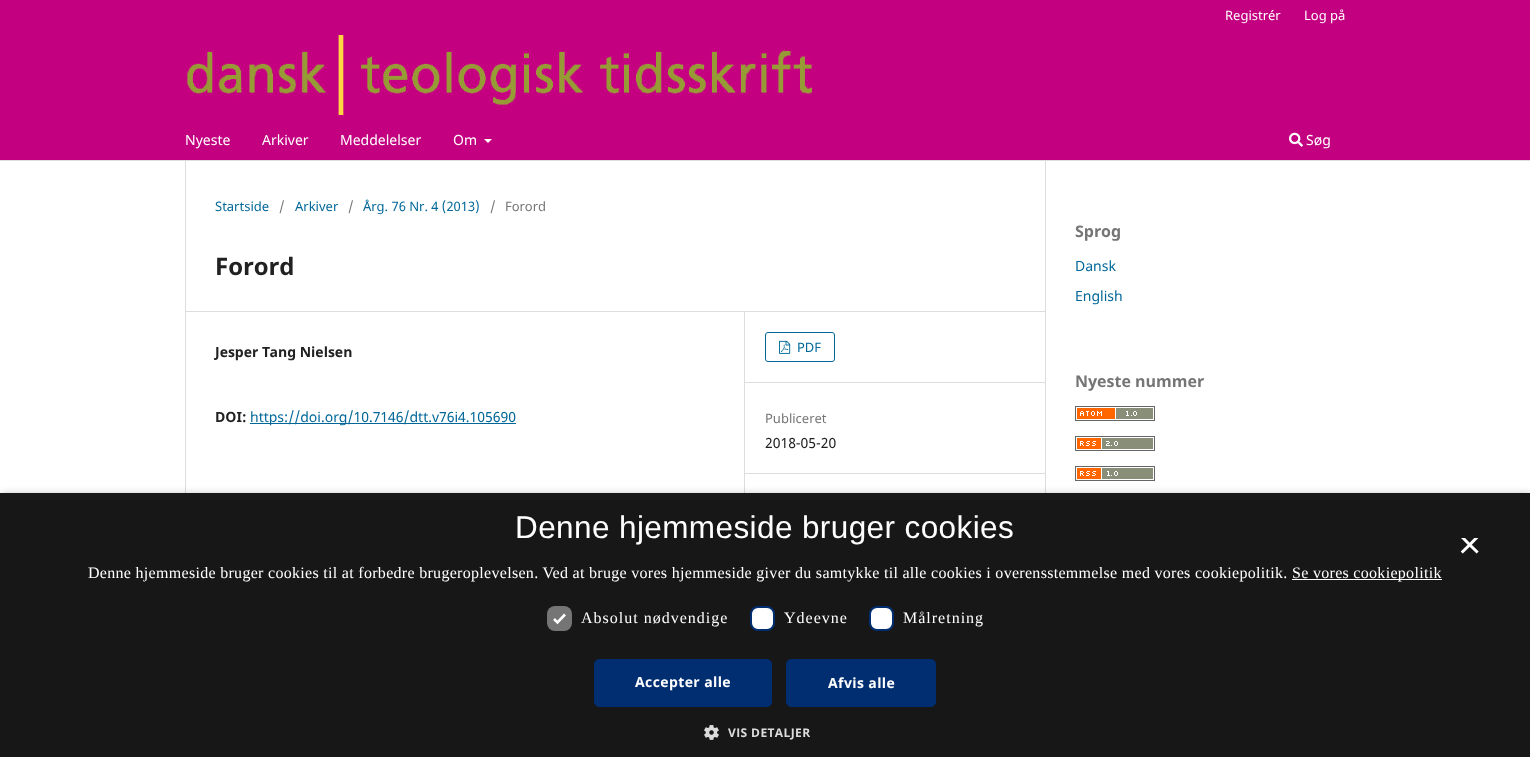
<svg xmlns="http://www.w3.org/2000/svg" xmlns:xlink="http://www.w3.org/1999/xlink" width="1530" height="757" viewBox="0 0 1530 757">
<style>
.cls-1{font:13px Noto Sans;fill:#ffffff}
.cls-2{font:14px Noto Sans;fill:#ffffff}
.cls-3{font:13px Noto Sans;fill:#006798}
.cls-4{font:13px Noto Sans;fill:#757575}
.cls-5{font:bold 24px Noto Sans;fill:#212121}
.cls-6{font:bold 14px Noto Sans;fill:#212121}
.cls-7{font:14px Noto Sans;fill:#006798}
.cls-8{font:14px Noto Sans;fill:#212121}
.cls-9{font:bold 16px Noto Sans;fill:#757575}
.cls-10{font:31.5px Liberation Sans;letter-spacing:0.4px;fill:#ffffff}
.cls-11{font:40px Liberation Sans;fill:#ffffff}
.cls-12{font:16px Liberation Serif;letter-spacing:0.3px;fill:#ffffff}
.cls-13{font:16px Liberation Serif;letter-spacing:1px;fill:#ffffff}
.cls-14{font:bold 14px Open Sans;letter-spacing:0.4px;fill:#ffffff}
.cls-15{font:bold 12px Open Sans;letter-spacing:0.4px;fill:#dcdcdc}
</style>
<defs>
<clipPath id="clip1"><rect x="1455" y="538" width="30" height="30"/></clipPath>
</defs>
<rect width="100%" height="100%" fill="#ffffff"/>
<rect fill="#c30080" x="0" y="0" width="1530" height="160"/>
<rect fill="#dddddd" x="0" y="160" width="1530" height="1"/>
<path fill="#ffffff" d="M484 139H492L488 143Z"/>
<image xlink:href="image0.png" x="1289" y="132" width="14" height="15"/>
<image xlink:href="image1.png" x="186" y="35" width="626" height="80"/>
<rect fill="#dddddd" x="185" y="311" width="860" height="1"/>
<rect fill="#dddddd" x="185" y="161" width="1" height="332"/>
<rect fill="#006798" x="250" y="423" width="266" height="1"/>
<rect fill="#dddddd" x="744" y="312" width="1" height="181"/>
<rect fill="#dddddd" x="745" y="382" width="300" height="1"/>
<rect fill="none" stroke="#006798" x="765.5" y="332.5" width="69" height="29" rx="2.5"/>
<image xlink:href="image2.png" x="779" y="340" width="12" height="14"/>
<rect fill="#dddddd" x="745" y="473" width="300" height="1"/>
<rect fill="#dddddd" x="1045" y="161" width="1" height="332"/>
<image xlink:href="image3.png" x="1075" y="406" width="80" height="15"/>
<image xlink:href="image4.png" x="1075" y="436" width="80" height="15"/>
<image xlink:href="image5.png" x="1075" y="466" width="80" height="15"/>
<rect fill="#000000" fill-opacity="0.35" filter="blur(4px)" x="1" y="495" width="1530" height="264"/>
<rect fill="#171717" x="0" y="493" width="1530" height="264"/>
<rect fill="#ffffff" x="1292" y="579" width="150" height="1"/>
<rect fill="#757575" x="547" y="606" width="25" height="25" rx="8"/>
<path fill="none" stroke="#ffffff" stroke-width="2.6" d="M554 619L557.5 622.5L565 614.5"/>
<rect fill="#ffffff" stroke="#002e70" stroke-width="2" x="751" y="607" width="23" height="23" rx="7"/>
<rect fill="#ffffff" stroke="#002e70" stroke-width="2" x="870" y="607" width="23" height="23" rx="7"/>
<rect fill="#002e70" stroke="#002e70" x="594.5" y="659.5" width="177" height="47" rx="4.5"/>
<rect fill="#002e70" stroke="#002e70" x="786.5" y="659.5" width="149" height="47" rx="4.5"/>
<image xlink:href="image6.png" x="704" y="725" width="15" height="15"/>
<text class="cls-1" x="1225" y="20">Registrér</text>
<text class="cls-1" x="1304" y="20">Log på</text>
<text class="cls-2" x="185" y="145">Nyeste</text>
<text class="cls-2" x="262" y="145">Arkiver</text>
<text class="cls-2" x="340" y="145">Meddelelser</text>
<text class="cls-2" x="453" y="145">Om</text>
<text class="cls-2" x="1306" y="145">Søg</text>
<text class="cls-3" x="215" y="211">Startside</text>
<text class="cls-4" x="279" y="211">/</text>
<text class="cls-3" x="295" y="211">Arkiver</text>
<text class="cls-4" x="348" y="211">/</text>
<text class="cls-3" x="363" y="211">Årg. 76 Nr. 4 (2013)</text>
<text class="cls-4" x="490" y="211">/</text>
<text class="cls-4" x="505" y="211">Forord</text>
<text class="cls-5" x="215" y="275">Forord</text>
<text class="cls-6" x="215" y="357">Jesper Tang Nielsen</text>
<text class="cls-6" x="215" y="422">DOI:</text>
<text class="cls-7" x="250" y="422">https://doi.org/10.7146/dtt.v76i4.105690</text>
<text class="cls-3" x="797" y="352">PDF</text>
<text class="cls-4" x="765" y="423">Publiceret</text>
<text class="cls-8" x="765" y="448">2018-05-20</text>
<text class="cls-9" x="1075" y="237">Sprog</text>
<text class="cls-7" x="1075" y="271">Dansk</text>
<text class="cls-7" x="1075" y="301">English</text>
<text class="cls-9" x="1075" y="387">Nyeste nummer</text>
<text class="cls-10" x="515" y="538">Denne hjemmeside bruger cookies</text>
<g clip-path="url(#clip1)">
<text class="cls-11" x="1458" y="558">×</text>
</g>
<text class="cls-12" x="88" y="578">Denne hjemmeside bruger cookies til at forbedre brugeroplevelsen. Ved at bruge vores hjemmeside giver du samtykke til alle cookies i overensstemmelse med vores cookiepolitik.</text>
<text class="cls-12" x="1292" y="578">Se vores cookiepolitik</text>
<text class="cls-13" x="581" y="623">Absolut nødvendige</text>
<text class="cls-13" x="784" y="623">Ydeevne</text>
<text class="cls-13" x="903" y="623">Målretning</text>
<text class="cls-14" x="635" y="687">Accepter alle</text>
<text class="cls-14" x="828" y="688">Afvis alle</text>
<text class="cls-15" x="728" y="737">VIS DETALJER</text>
</svg>
